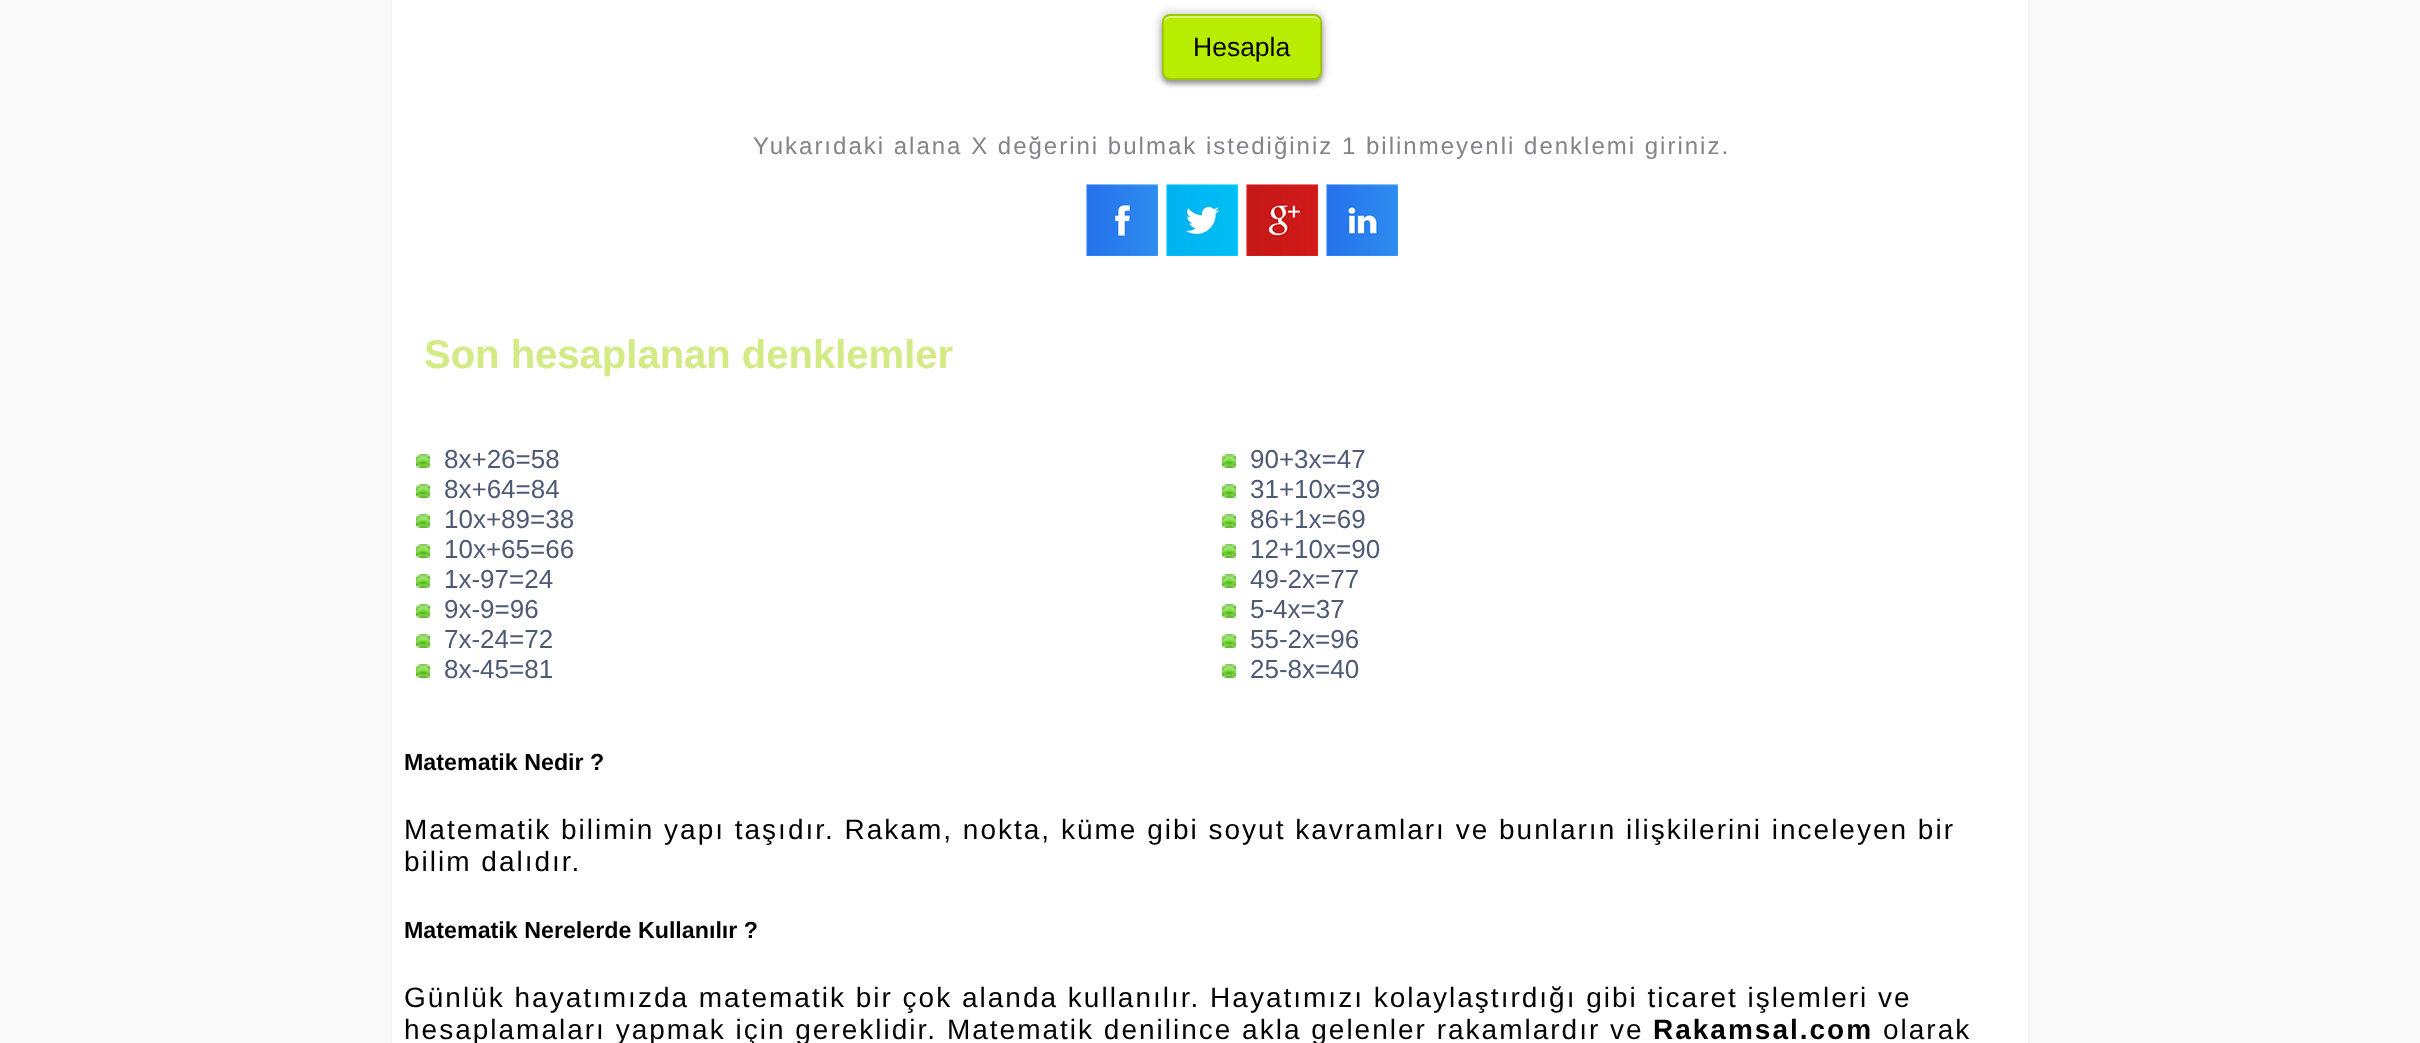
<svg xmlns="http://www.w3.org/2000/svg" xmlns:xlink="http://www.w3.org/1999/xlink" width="2420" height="1043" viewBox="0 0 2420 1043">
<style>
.cls-1{font:26.5px Liberation Sans;fill:#000000}
.cls-2{font:24px Liberation Sans;letter-spacing:2px;fill:#87818b}
.cls-3{font:bold 40px Liberation Sans;fill:#d3ea85}
.cls-4{font:26px Liberation Sans;fill:#4e5a75}
.cls-5{font:bold 23.25px Liberation Sans;fill:#000000}
.cls-6{font:28px Liberation Sans;letter-spacing:2px;fill:#000000}
.cls-7{font:bold 28px Liberation Sans;letter-spacing:2px;fill:#000000}
</style>
<rect width="100%" height="100%" fill="#f9f9f9"/>
<rect fill="#ffffff" stroke="#f4f4f4" stroke-width="2" x="391" y="-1" width="1638" height="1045"/>
<rect fill="#000000" fill-opacity="0.2" filter="blur(4px)" x="1160" y="12" width="164" height="70" rx="10"/>
<rect fill="#000000" fill-opacity="0.3" filter="blur(2px)" x="1162" y="18" width="160" height="66" rx="8"/>
<rect fill="#b8ed01" x="1162" y="14" width="160" height="66" rx="8"/>
<path fill="#dcf680" d="M1170 18H1314C1317 18 1320 21 1320 24V22C1320 19 1317 16 1314 16H1170C1167 16 1164 19 1164 22V24C1164 21 1167 18 1170 18Z"/>
<rect fill="none" stroke="#000000" stroke-opacity="0.15" stroke-width="2" x="1163" y="15" width="158" height="64" rx="7"/>
<image xlink:href="image0.png" x="1086" y="184" width="72" height="72"/>
<image xlink:href="image1.png" x="1166" y="184" width="72" height="72"/>
<image xlink:href="image2.png" x="1246" y="184" width="72" height="72"/>
<image xlink:href="image3.png" x="1326" y="184" width="72" height="72"/>
<image xlink:href="image4.png" x="416" y="454" width="14" height="14"/>
<image xlink:href="image4.png" x="416" y="484" width="14" height="14"/>
<image xlink:href="image4.png" x="416" y="514" width="14" height="14"/>
<image xlink:href="image4.png" x="416" y="544" width="14" height="14"/>
<image xlink:href="image4.png" x="416" y="574" width="14" height="14"/>
<image xlink:href="image4.png" x="416" y="604" width="14" height="14"/>
<image xlink:href="image4.png" x="416" y="634" width="14" height="14"/>
<image xlink:href="image4.png" x="416" y="664" width="14" height="14"/>
<image xlink:href="image4.png" x="1222" y="454" width="14" height="14"/>
<image xlink:href="image4.png" x="1222" y="484" width="14" height="14"/>
<image xlink:href="image4.png" x="1222" y="514" width="14" height="14"/>
<image xlink:href="image4.png" x="1222" y="544" width="14" height="14"/>
<image xlink:href="image4.png" x="1222" y="574" width="14" height="14"/>
<image xlink:href="image4.png" x="1222" y="604" width="14" height="14"/>
<image xlink:href="image4.png" x="1222" y="634" width="14" height="14"/>
<image xlink:href="image4.png" x="1222" y="664" width="14" height="14"/>
<text class="cls-1" x="1193" y="56">Hesapla</text>
<text class="cls-2" x="753" y="154">Yukarıdaki alana X değerini bulmak istediğiniz 1 bilinmeyenli denklemi giriniz.</text>
<text class="cls-3" x="424" y="368">Son hesaplanan denklemler</text>
<text class="cls-4"><tspan x="444" y="468">8x+26=58</tspan><tspan x="444" y="498">8x+64=84</tspan><tspan x="444" y="528">10x+89=38</tspan><tspan x="444" y="558">10x+65=66</tspan><tspan x="444" y="588">1x-97=24</tspan><tspan x="444" y="618">9x-9=96</tspan><tspan x="444" y="648">7x-24=72</tspan><tspan x="444" y="678">8x-45=81</tspan></text>
<text class="cls-4"><tspan x="1250" y="468">90+3x=47</tspan><tspan x="1250" y="498">31+10x=39</tspan><tspan x="1250" y="528">86+1x=69</tspan><tspan x="1250" y="558">12+10x=90</tspan><tspan x="1250" y="588">49-2x=77</tspan><tspan x="1250" y="618">5-4x=37</tspan><tspan x="1250" y="648">55-2x=96</tspan><tspan x="1250" y="678">25-8x=40</tspan></text>
<text class="cls-5" x="404" y="770">Matematik Nedir ?</text>
<text class="cls-6"><tspan x="404" y="839">Matematik bilimin yapı taşıdır. Rakam, nokta, küme gibi soyut kavramları ve bunların ilişkilerini inceleyen bir</tspan><tspan x="404" y="871">bilim dalıdır.</tspan></text>
<text class="cls-5" x="404" y="938">Matematik Nerelerde Kullanılır ?</text>
<text class="cls-6"><tspan x="404" y="1007">Günlük hayatımızda matematik bir çok alanda kullanılır. Hayatımızı kolaylaştırdığı gibi ticaret işlemleri ve</tspan><tspan x="404" y="1039">hesaplamaları yapmak için gereklidir. Matematik denilince akla gelenler rakamlardır ve</tspan></text>
<text class="cls-7" x="1653" y="1039">Rakamsal.com</text>
<text class="cls-6" x="1883" y="1039">olarak</text>
</svg>
